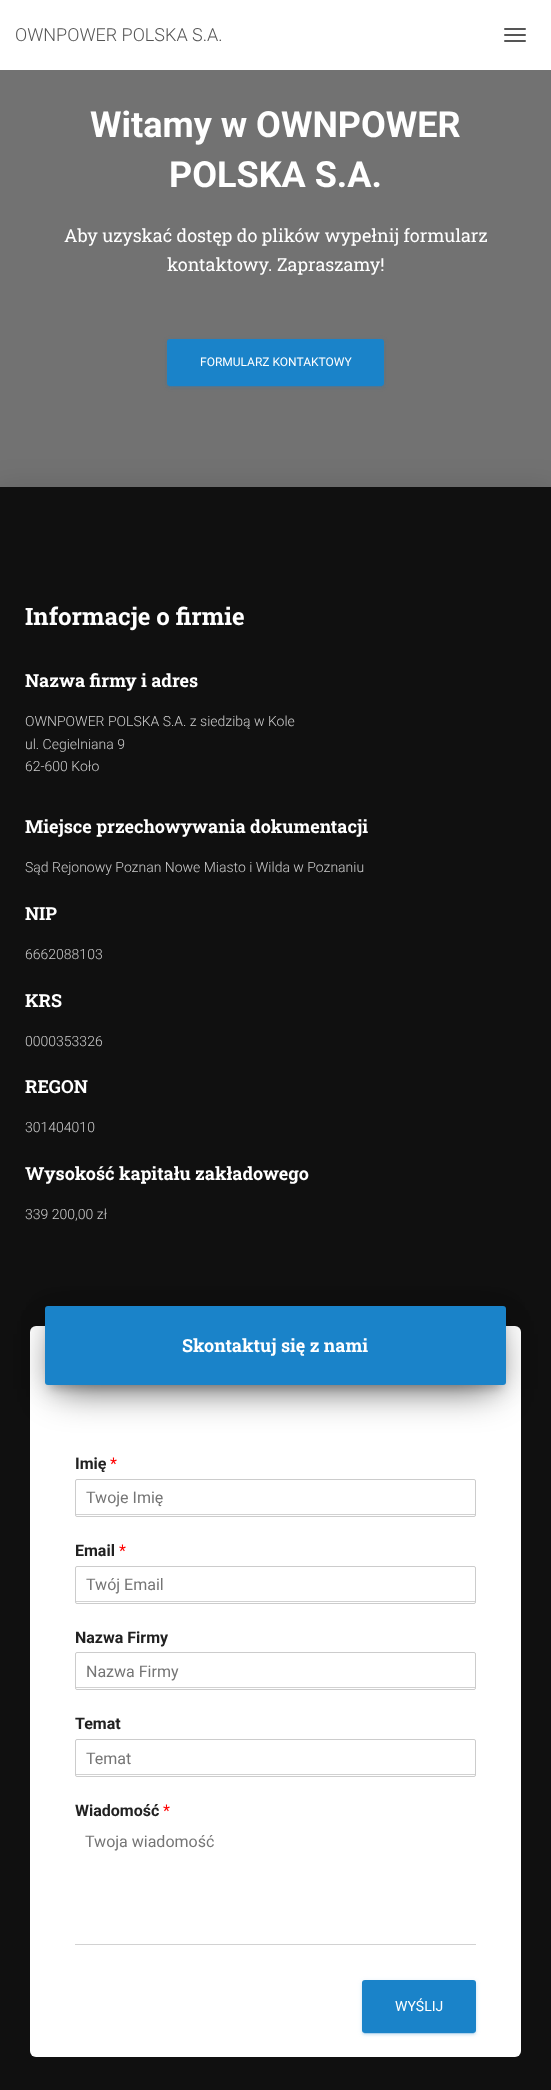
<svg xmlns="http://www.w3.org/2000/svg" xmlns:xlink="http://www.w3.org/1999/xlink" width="551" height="2090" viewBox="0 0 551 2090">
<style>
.cls-1{font:300 18px Roboto;fill:#555555}
.cls-2{font:bold 36px Roboto;fill:#ffffff}
.cls-3{font:18px Roboto Slab;fill:#ffffff}
.cls-4{font:12px Roboto;fill:#ffffff}
.cls-5{font:bold 24px Roboto Slab;fill:#ffffff}
.cls-6{font:bold 18px Roboto Slab;fill:#ffffff}
.cls-7{font:300 14px Roboto;fill:#cccccc}
.cls-8{font:bold 16px Roboto;fill:#212121}
.cls-9{font:16px Roboto;fill:#ff0000}
.cls-10{font:16px Roboto;fill:#757575}
.cls-11{font:14px Roboto;fill:#ffffff}
</style>
<rect width="100%" height="100%" fill="#727272"/>
<rect fill="#ffffff" x="0" y="0" width="551" height="70"/>
<rect fill="#555555" x="504" y="28" width="22" height="2" rx="1"/>
<rect fill="#555555" x="504" y="34" width="22" height="2" rx="1"/>
<rect fill="#555555" x="504" y="40" width="22" height="2" rx="1"/>
<rect fill="#1a83c9" fill-opacity="0.12" filter="blur(2.5px)" x="167" y="340" width="217" height="47" rx="3"/>
<rect fill="#1a83c9" fill-opacity="0.2" filter="blur(0.5px)" x="169" y="344" width="213" height="43" rx="1"/>
<rect fill="#1a83c9" fill-opacity="0.14" filter="blur(1px)" x="167" y="341" width="217" height="47" rx="3"/>
<rect fill="#1a83c9" x="167" y="339" width="217" height="47" rx="3"/>
<rect fill="#000000" fill-opacity="0.12" filter="blur(15px)" x="-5" y="488" width="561" height="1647"/>
<rect fill="#101010" x="0" y="487" width="551" height="1603"/>
<rect fill="#ffffff" x="30" y="1326" width="491" height="731" rx="6"/>
<rect fill="#000000" fill-opacity="0.2" filter="blur(5px)" x="50" y="1319" width="451" height="69"/>
<rect fill="#000000" fill-opacity="0.12" filter="blur(12.5px)" x="45" y="1310" width="461" height="79" rx="3"/>
<rect fill="#000000" fill-opacity="0.56" filter="blur(19px)" x="57" y="1334" width="437" height="55"/>
<rect fill="#1a83c9" x="45" y="1306" width="461" height="79" rx="3"/>
<rect fill="#d2d2d2" x="76" y="1514" width="399" height="1"/>
<rect fill="none" stroke="#cccccc" x="75.5" y="1479.5" width="400" height="37" rx="1.5"/>
<rect fill="#d2d2d2" x="76" y="1601" width="399" height="1"/>
<rect fill="none" stroke="#cccccc" x="75.5" y="1566.5" width="400" height="37" rx="1.5"/>
<rect fill="#d2d2d2" x="76" y="1687" width="399" height="1"/>
<rect fill="none" stroke="#cccccc" x="75.5" y="1652.5" width="400" height="37" rx="1.5"/>
<rect fill="#d2d2d2" x="76" y="1774" width="399" height="1"/>
<rect fill="none" stroke="#cccccc" x="75.5" y="1739.5" width="400" height="37" rx="1.5"/>
<rect fill="#d2d2d2" x="75" y="1944" width="401" height="1"/>
<rect fill="#1a83c9" fill-opacity="0.12" filter="blur(2.5px)" x="362" y="1981" width="114" height="53" rx="3"/>
<rect fill="#1a83c9" fill-opacity="0.2" filter="blur(0.5px)" x="364" y="1985" width="110" height="49" rx="1"/>
<rect fill="#1a83c9" fill-opacity="0.14" filter="blur(1px)" x="362" y="1982" width="114" height="53" rx="3"/>
<rect fill="#1a83c9" x="362" y="1980" width="114" height="53" rx="3"/>
<text class="cls-1" x="15" y="41">OWNPOWER POLSKA S.A.</text>
<text class="cls-2" x="90" y="137">Witamy w OWNPOWER</text>
<text class="cls-2" x="169" y="187">POLSKA S.A.</text>
<text class="cls-3" x="64" y="242">Aby uzyskać dostęp do plików wypełnij formularz</text>
<text class="cls-3" x="167" y="271">kontaktowy. Zapraszamy!</text>
<text class="cls-4" x="200" y="366">FORMULARZ KONTAKTOWY</text>
<text class="cls-5" x="25" y="625">Informacje o firmie</text>
<text class="cls-6" x="25" y="687">Nazwa firmy i adres</text>
<text class="cls-7"><tspan x="25" y="726">OWNPOWER POLSKA S.A. z siedzibą w Kole</tspan><tspan x="25" y="749">ul. Cegielniana 9</tspan><tspan x="25" y="771">62-600 Koło</tspan></text>
<text class="cls-6" x="25" y="833">Miejsce przechowywania dokumentacji</text>
<text class="cls-7" x="25" y="872">Sąd Rejonowy Poznan Nowe Miasto i Wilda w Poznaniu</text>
<text class="cls-6" x="25" y="920">NIP</text>
<text class="cls-7" x="25" y="959">6662088103</text>
<text class="cls-6" x="25" y="1007">KRS</text>
<text class="cls-7" x="25" y="1046">0000353326</text>
<text class="cls-6" x="25" y="1093">REGON</text>
<text class="cls-7" x="25" y="1132">301404010</text>
<text class="cls-6" x="25" y="1180">Wysokość kapitału zakładowego</text>
<text class="cls-7" x="25" y="1219">339 200,00 zł</text>
<text class="cls-6" x="182" y="1352">Skontaktuj się z nami</text>
<text class="cls-8" x="75" y="1469">Imię</text>
<text class="cls-9" x="110" y="1469">*</text>
<text class="cls-10" x="86" y="1503">Twoje Imię</text>
<text class="cls-8" x="75" y="1556">Email</text>
<text class="cls-9" x="119" y="1556">*</text>
<text class="cls-10" x="86" y="1590">Twój Email</text>
<text class="cls-8" x="75" y="1643">Nazwa Firmy</text>
<text class="cls-10" x="86" y="1677">Nazwa Firmy</text>
<text class="cls-8" x="75" y="1729">Temat</text>
<text class="cls-10" x="86" y="1764">Temat</text>
<text class="cls-8" x="75" y="1816">Wiadomość</text>
<text class="cls-9" x="163" y="1816">*</text>
<text class="cls-10" x="85" y="1847">Twoja wiadomość</text>
<text class="cls-11" x="395" y="2011">WYŚLIJ</text>
</svg>
